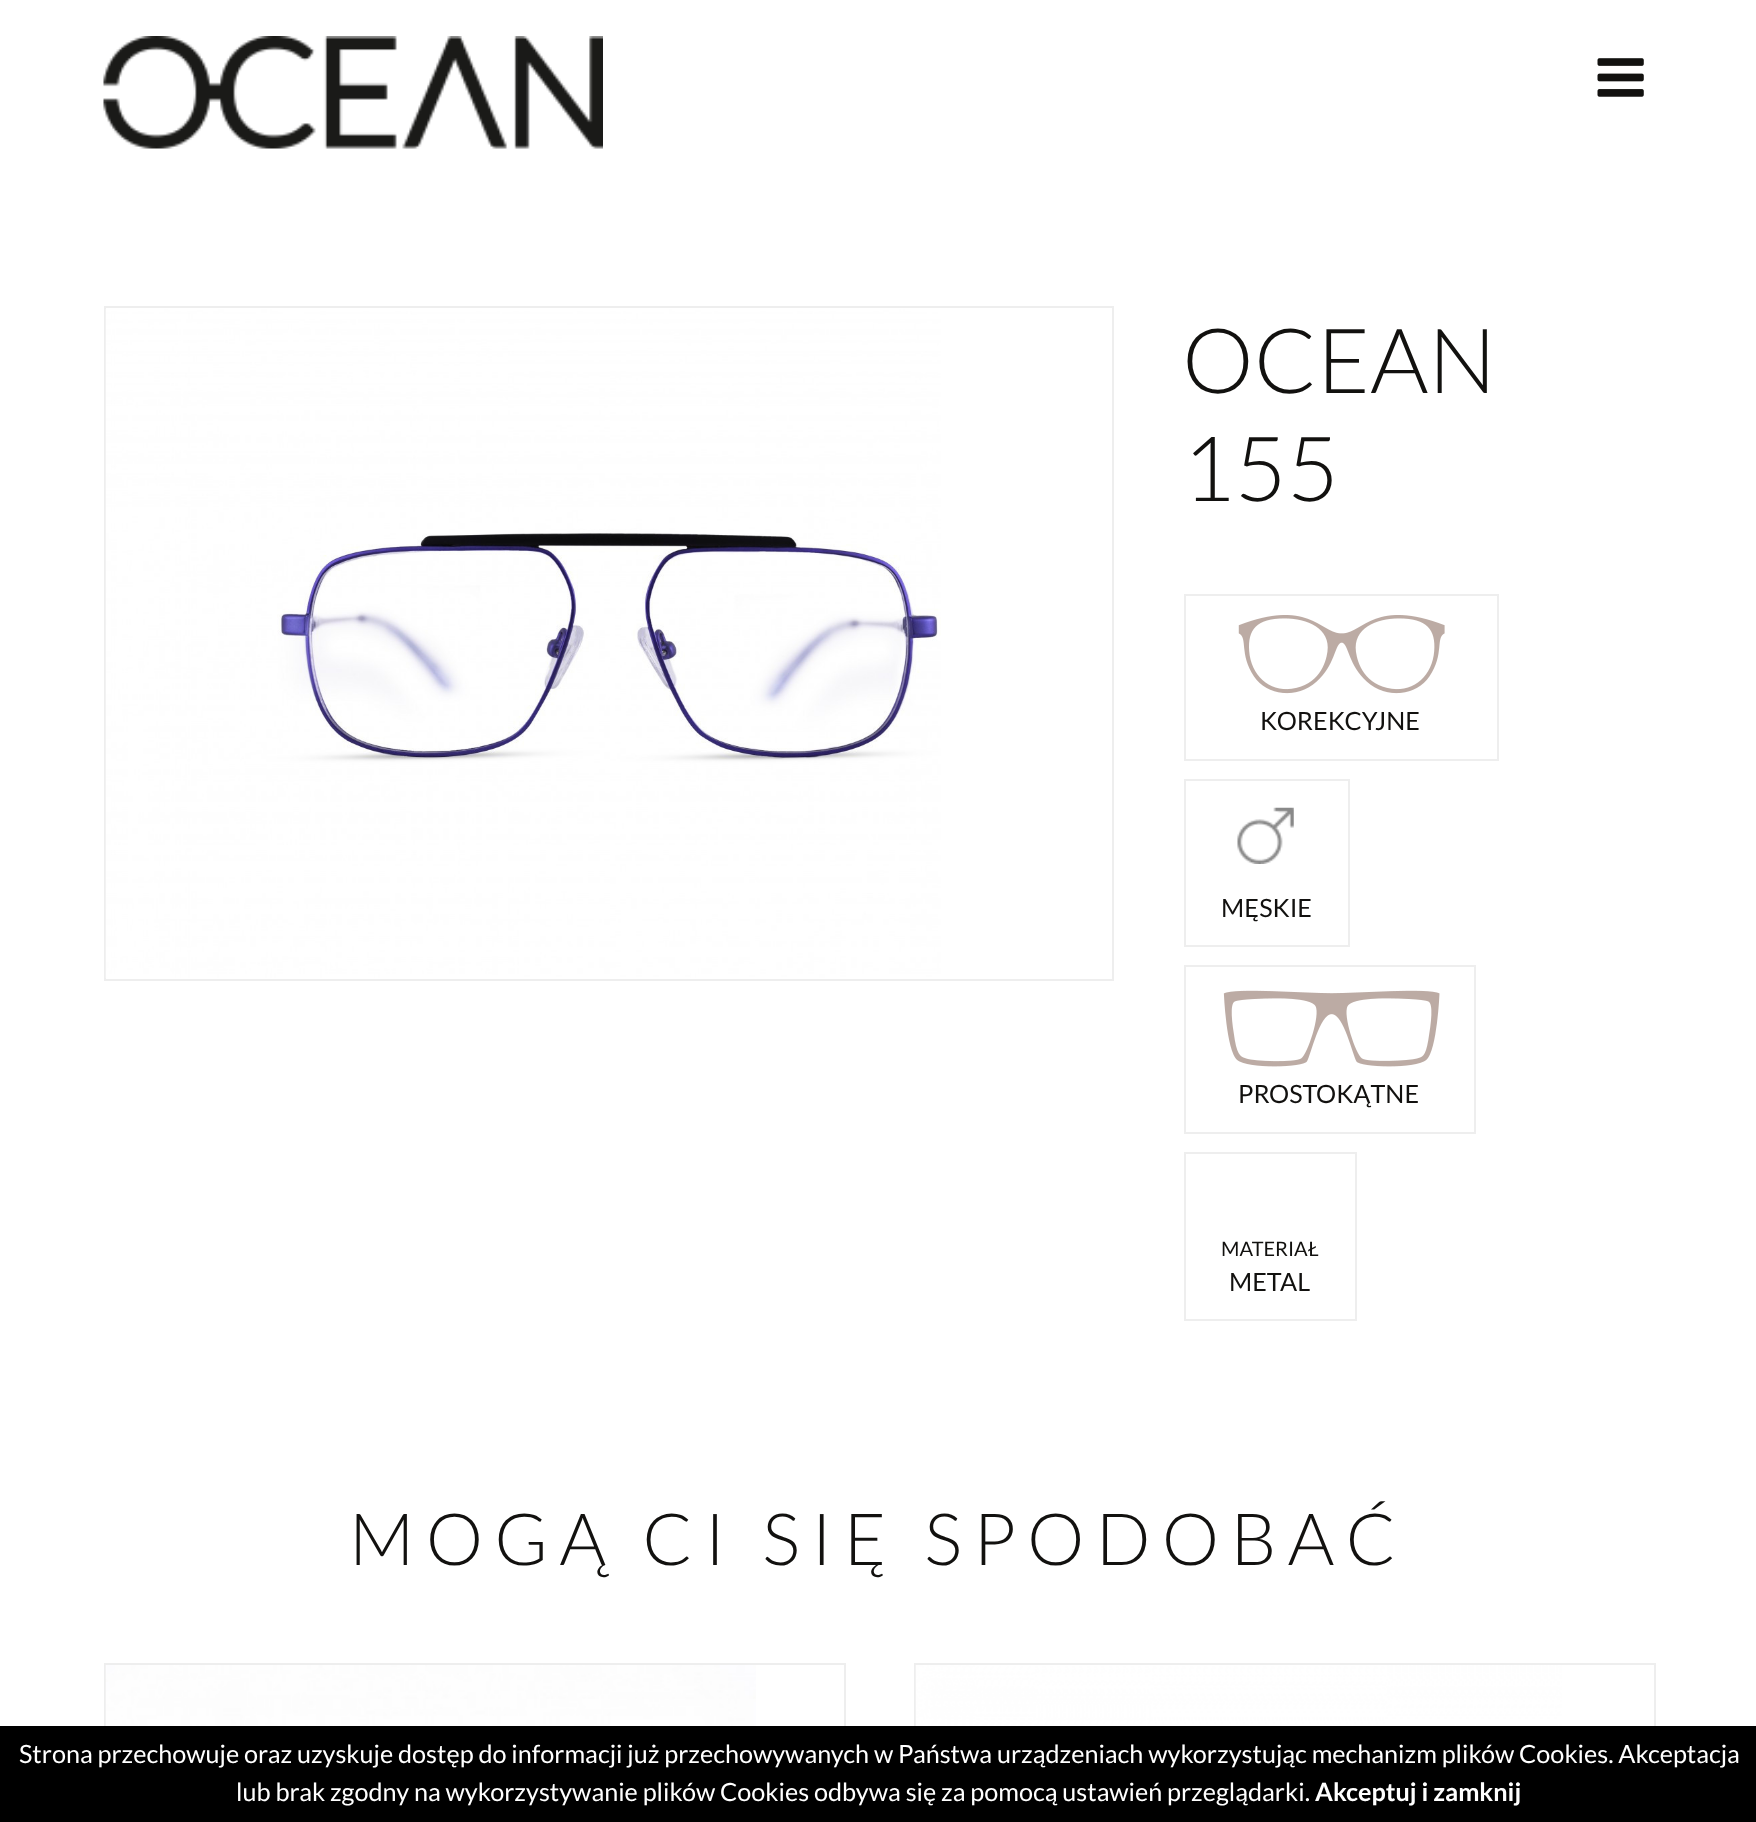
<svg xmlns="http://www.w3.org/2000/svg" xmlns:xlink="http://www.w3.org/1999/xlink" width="1756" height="1822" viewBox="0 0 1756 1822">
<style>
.cls-1{font:300 90px Lato;fill:#12110f}
.cls-2{font:25.2px Lato;fill:#12110f}
.cls-3{font:20px Lato;fill:#12110f}
.cls-4{font:300 72px Lato;letter-spacing:11.25px;fill:#12110f}
.cls-5{font:25.2px Lato;fill:#ffffff}
.cls-6{font:bold 25.2px Lato;fill:#ffffff}
</style>
<rect width="100%" height="100%" fill="#ffffff"/>
<image xlink:href="image0.png" x="103" y="36" width="500" height="113"/>
<image xlink:href="image1.png" x="1597" y="58" width="47" height="39"/>
<rect fill="none" stroke="#eeeeee" stroke-width="2" x="105" y="307" width="1008" height="673"/>
<image xlink:href="image2.png" x="105" y="309" width="836" height="669"/>
<image xlink:href="image3.png" x="1238" y="615" width="207" height="79"/>
<rect fill="none" stroke="#eeeeee" stroke-width="2" x="1185" y="595" width="313" height="165"/>
<image xlink:href="image4.png" x="1237" y="807" width="57" height="57"/>
<rect fill="none" stroke="#eeeeee" stroke-width="2" x="1185" y="780" width="164" height="166"/>
<image xlink:href="image5.png" x="1223" y="990" width="217" height="77"/>
<rect fill="none" stroke="#eeeeee" stroke-width="2" x="1185" y="966" width="290" height="167"/>
<rect fill="none" stroke="#eeeeee" stroke-width="2" x="1185" y="1153" width="171" height="167"/>
<rect fill="none" stroke="#eeeeee" stroke-width="2" x="105" y="1664" width="740" height="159"/>
<image xlink:href="image6.png" x="105" y="1665" width="651" height="61"/>
<rect fill="none" stroke="#eeeeee" stroke-width="2" x="915" y="1664" width="740" height="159"/>
<image xlink:href="image7.png" x="915" y="1665" width="647" height="61"/>
<rect fill="#000000" x="0" y="1726" width="1756" height="96"/>
<text class="cls-1"><tspan x="1182" y="393">OCEAN</tspan><tspan x="1182" y="501">155</tspan></text>
<text class="cls-2" x="1260" y="730">KOREKCYJNE</text>
<text class="cls-2" x="1221" y="917">MĘSKIE</text>
<text class="cls-2" x="1238" y="1103">PROSTOKĄTNE</text>
<text class="cls-3" x="1221" y="1256">MATERIAŁ</text>
<text class="cls-2" x="1229" y="1291">METAL</text>
<text class="cls-4" x="349" y="1565">MOGĄ CI SIĘ SPODOBAĆ</text>
<text class="cls-5" x="19" y="1763">Strona przechowuje oraz uzyskuje dostęp do informacji już przechowywanych w Państwa urządzeniach wykorzystując mechanizm plików Cookies. Akceptacja</text>
<text class="cls-5" x="236" y="1801">lub brak zgodny na wykorzystywanie plików Cookies odbywa się za pomocą ustawień przeglądarki.</text>
<text class="cls-6" x="1315" y="1801">Akceptuj i zamknij</text>
</svg>
